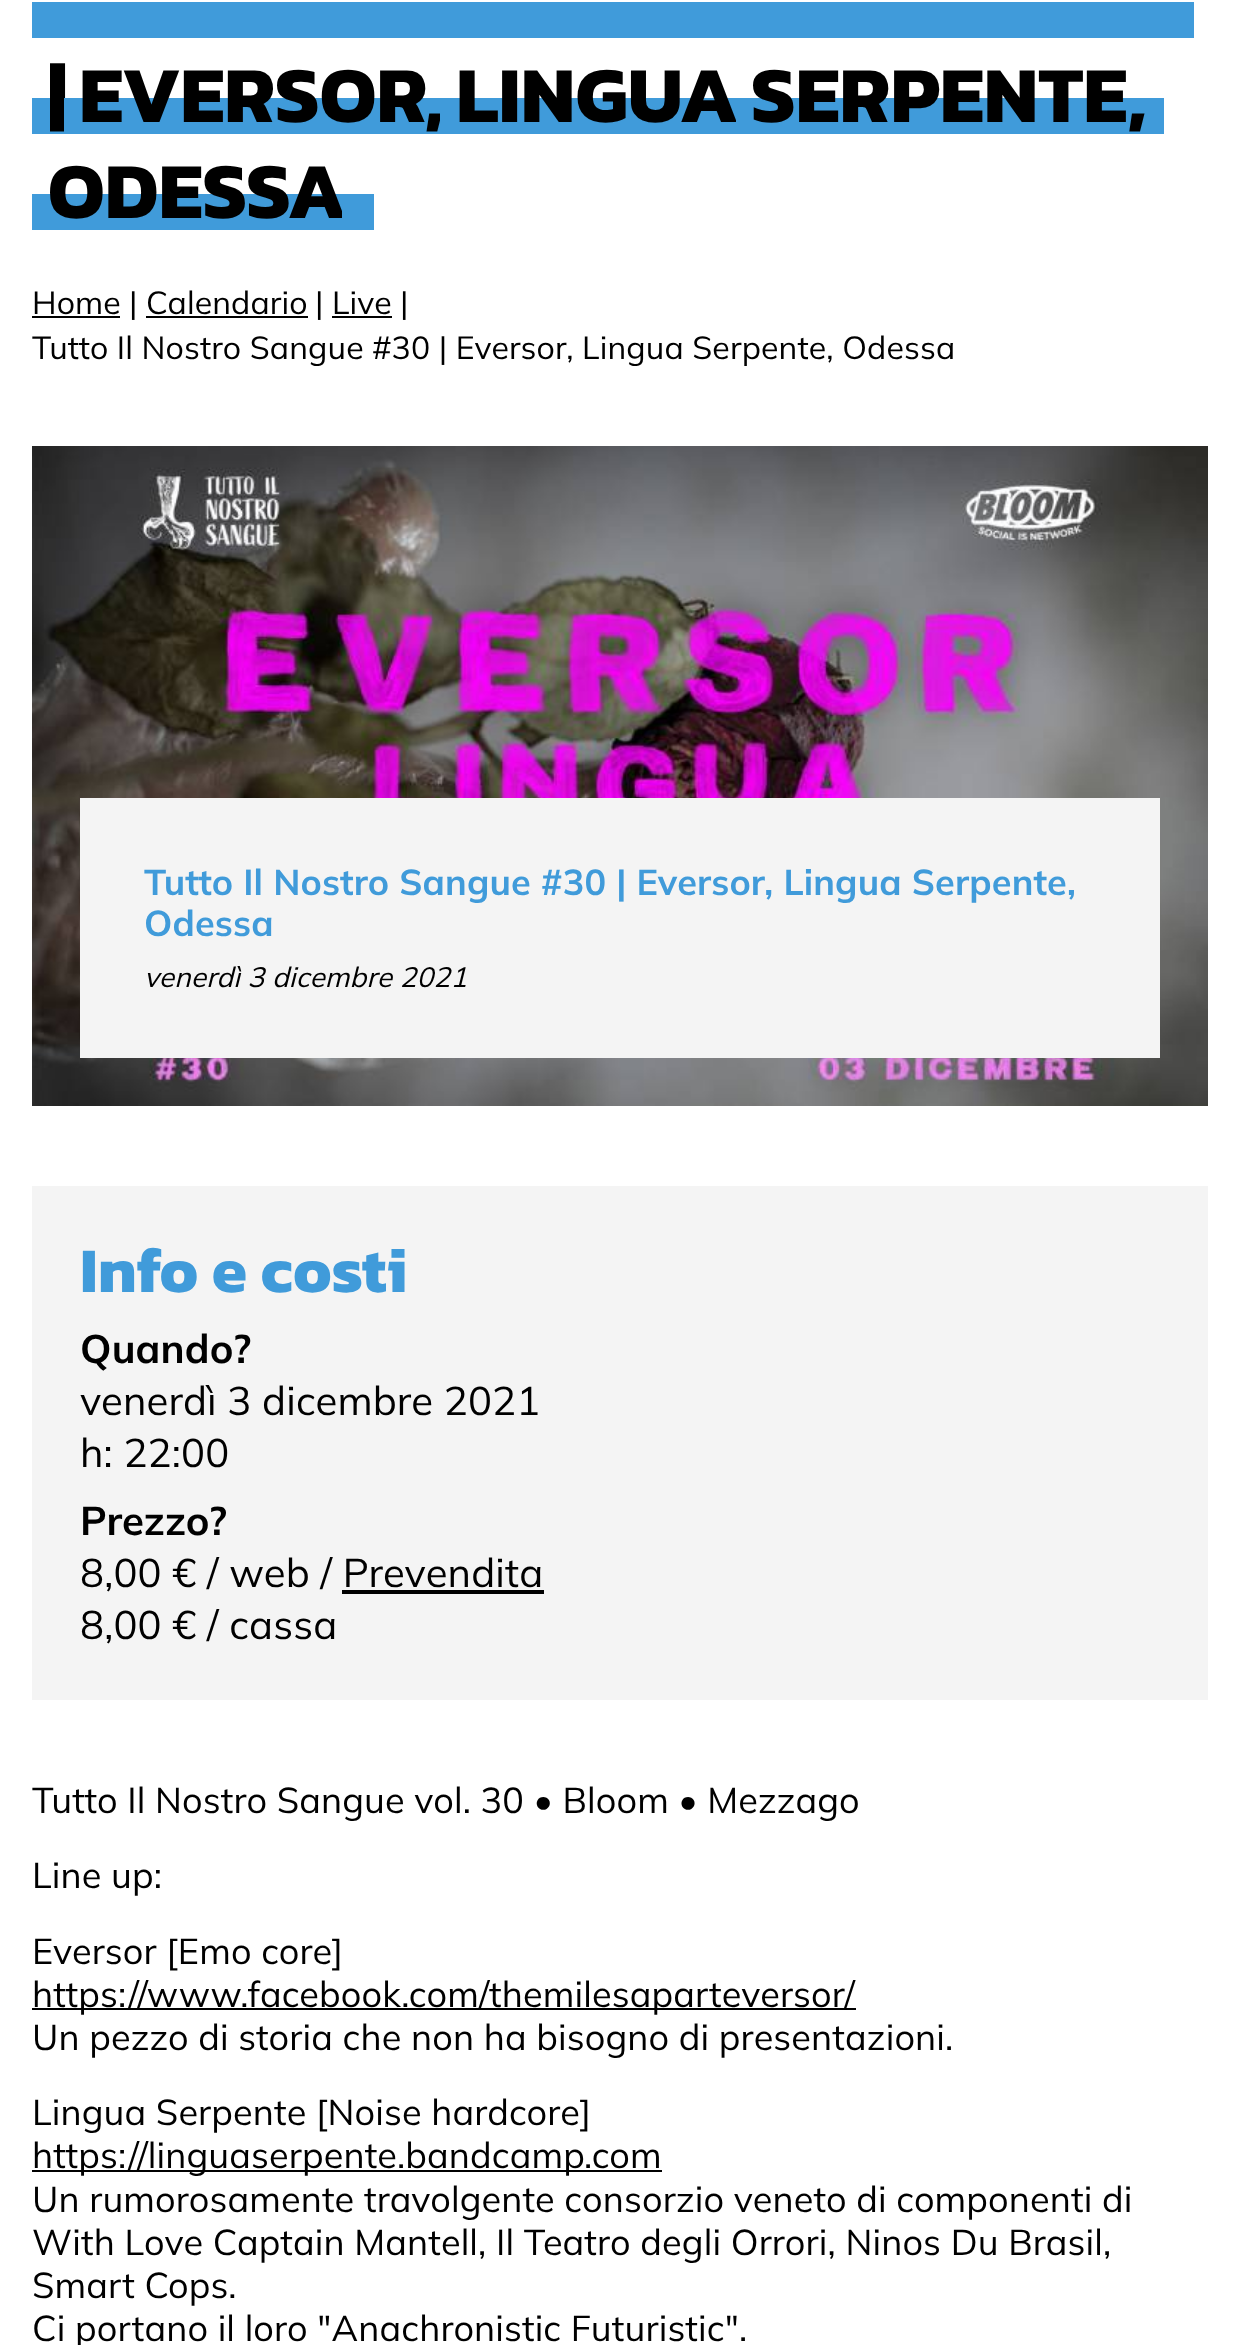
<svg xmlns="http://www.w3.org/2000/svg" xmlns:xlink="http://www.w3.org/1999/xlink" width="1240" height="2345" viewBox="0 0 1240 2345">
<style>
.cls-1{font:bold 80px Kanit;letter-spacing:0.15px;fill:#000000}
.cls-2{font:32px Mulish;letter-spacing:0.15px;fill:#000000}
.cls-3{font:bold 36px Mulish;letter-spacing:0.15px;fill:#409bda}
.cls-4{font:italic 28px Mulish;letter-spacing:0.15px;fill:#000000}
.cls-5{font:bold 64px Kanit;letter-spacing:0.15px;fill:#409bda}
.cls-6{font:bold 40px Mulish;letter-spacing:0.15px;fill:#000000}
.cls-7{font:40px Mulish;letter-spacing:0.15px;fill:#000000}
.cls-8{font:36px Mulish;letter-spacing:0.15px;fill:#000000}
</style>
<defs>
<clipPath id="clip1"><rect x="32" y="328" width="924" height="38"/></clipPath>
</defs>
<rect width="100%" height="100%" fill="#ffffff"/>
<rect fill="#409bda" x="32" y="2" width="1162" height="36"/>
<rect fill="#409bda" x="32" y="98" width="32" height="36"/>
<rect fill="#409bda" x="32" y="194" width="310" height="36"/>
<rect fill="#000000" x="32" y="316" width="88" height="2"/>
<rect fill="#000000" x="146" y="316" width="162" height="2"/>
<rect fill="#000000" x="332" y="316" width="60" height="2"/>
<image xlink:href="image0.png" x="32" y="446" width="1176" height="660"/>
<rect fill="#f4f4f4" x="80" y="798" width="1080" height="260"/>
<rect fill="#f4f4f4" x="32" y="1186" width="1176" height="514"/>
<rect fill="#000000" x="342" y="1590" width="202" height="4"/>
<rect fill="#000000" x="32" y="2008" width="824" height="2"/>
<rect fill="#000000" x="32" y="2170" width="630" height="2"/>
<text class="cls-1" x="48" y="122">|</text>
<rect fill="#409bda" x="64" y="98" width="376" height="36"/>
<text class="cls-1" x="79" y="122">EVERSOR,</text>
<rect fill="#409bda" x="440" y="98" width="296" height="36"/>
<text class="cls-1" x="456" y="122">LINGUA</text>
<rect fill="#409bda" x="736" y="98" width="428" height="36"/>
<text class="cls-1" x="751" y="122">SERPENTE,</text>
<text class="cls-1" x="48" y="218">ODESSA</text>
<rect fill="#409bda" x="342" y="194" width="32" height="36"/>
<text class="cls-2" x="32" y="314">Home</text>
<text class="cls-2" x="129" y="314">|</text>
<text class="cls-2" x="146" y="314">Calendario</text>
<text class="cls-2" x="315" y="314">|</text>
<text class="cls-2" x="332" y="314">Live</text>
<text class="cls-2" x="400" y="314">|</text>
<g clip-path="url(#clip1)">
<text class="cls-2" x="32" y="359">Tutto Il Nostro Sangue #30 | Eversor, Lingua Serpente, Odessa</text>
</g>
<text class="cls-3"><tspan x="144" y="895">Tutto Il Nostro Sangue #30 | Eversor, Lingua Serpente,</tspan><tspan x="144" y="936">Odessa</tspan></text>
<text class="cls-4" x="144" y="987">venerdì 3 dicembre 2021</text>
<text class="cls-5" x="80" y="1292">Info e costi</text>
<text class="cls-6" x="80" y="1363">Quando?</text>
<text class="cls-7"><tspan x="80" y="1415">venerdì 3 dicembre 2021</tspan><tspan x="80" y="1467">h: 22:00</tspan></text>
<text class="cls-6" x="80" y="1535">Prezzo?</text>
<text class="cls-7"><tspan x="80" y="1587">8,00 € / web / Prevendita</tspan><tspan x="80" y="1639">8,00 € / cassa</tspan></text>
<text class="cls-8" x="32" y="1813">Tutto Il Nostro Sangue vol. 30 • Bloom • Mezzago</text>
<text class="cls-8" x="32" y="1888">Line up:</text>
<text class="cls-8"><tspan x="32" y="1964">Eversor [Emo core]</tspan><tspan x="32" y="2007">https://www.facebook.com/themilesaparteversor/</tspan><tspan x="32" y="2050">Un pezzo di storia che non ha bisogno di presentazioni.</tspan></text>
<text class="cls-8"><tspan x="32" y="2125">Lingua Serpente [Noise hardcore]</tspan><tspan x="32" y="2168">https://linguaserpente.bandcamp.com</tspan><tspan x="32" y="2212">Un rumorosamente travolgente consorzio veneto di componenti di</tspan><tspan x="32" y="2255">With Love Captain Mantell, Il Teatro degli Orrori, Ninos Du Brasil,</tspan><tspan x="32" y="2298">Smart Cops.</tspan><tspan x="32" y="2341">Ci portano il loro "Anachronistic Futuristic".</tspan></text>
</svg>
